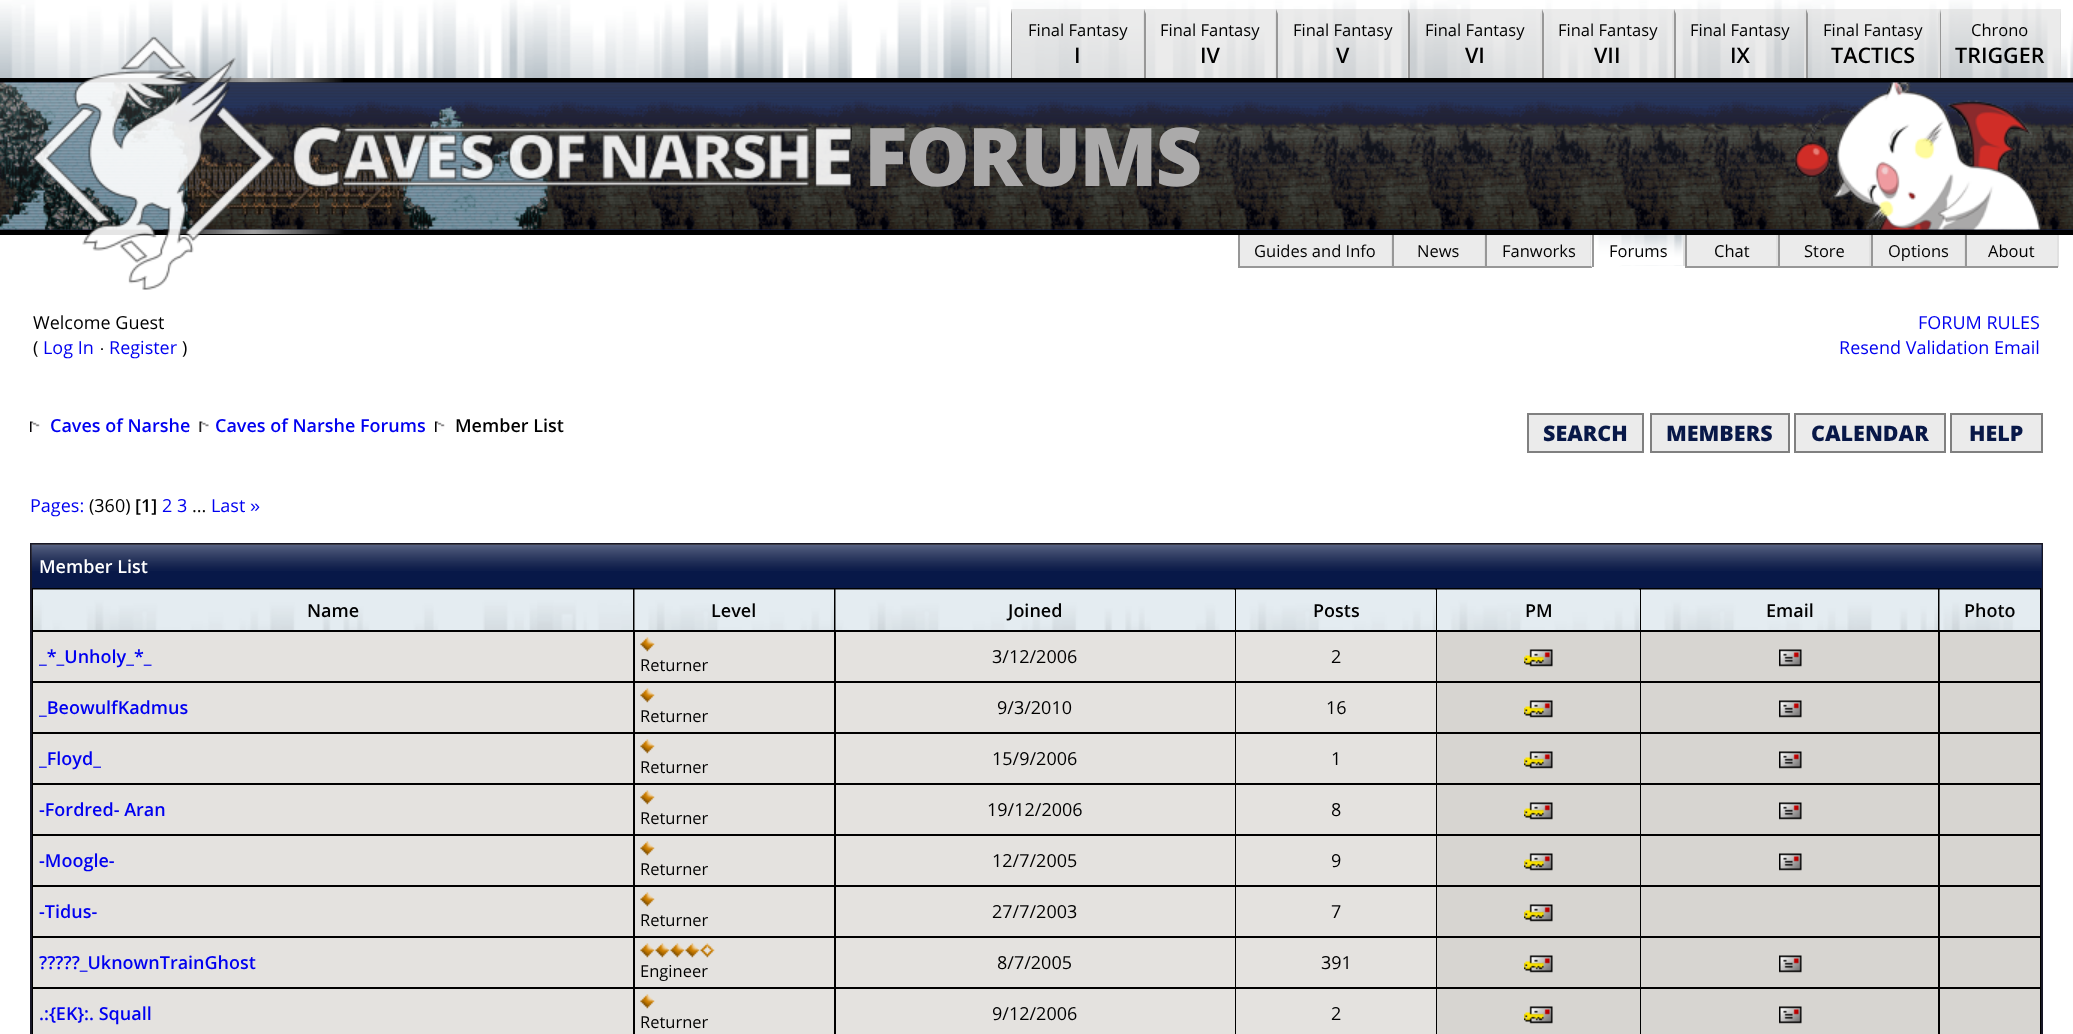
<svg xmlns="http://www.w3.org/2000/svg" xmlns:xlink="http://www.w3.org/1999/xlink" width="2073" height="1034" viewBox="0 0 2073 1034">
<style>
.cls-1{font:16.5px Open Sans;fill:#000000}
.cls-2{font:600 21.5px Open Sans;fill:#000000}
.cls-3{font:800 81px Open Sans;letter-spacing:-2.25px;fill:#abaaaa}
.cls-4{font:18px Open Sans;fill:#000000}
.cls-5{font:18px Open Sans;fill:#0000f0}
.cls-6{font:18px Liberation Sans;fill:#000000}
.cls-7{font:600 18px Open Sans;fill:#0000f0}
.cls-8{font:600 18px Open Sans;fill:#000000}
.cls-9{font:800 21.5px Open Sans;fill:#081848}
.cls-10{font:18px Liberation Sans;fill:#0000f0}
.cls-11{font:600 18px Open Sans;fill:#ffffff}
</style>
<rect width="100%" height="100%" fill="#ffffff"/>
<rect fill="#ebebeb" x="1967" y="235" width="90" height="31"/>
<rect fill="#ebebeb" x="1487" y="235" width="103" height="31"/>
<rect fill="#ebebeb" x="1394" y="235" width="90" height="31"/>
<image xlink:href="image0.png" x="0" y="0" width="2073" height="78"/>
<rect fill="#d7d7d7" fill-opacity="0.5" x="1011" y="9" width="134" height="69"/>
<path fill="#e1e1e1" d="M1144 9V80L1143 78V14Z"/>
<path fill="#979797" d="M1011 80V9L1012 14V78Z"/>
<rect fill="#d7d7d7" fill-opacity="0.5" x="1145" y="9" width="132" height="69"/>
<path fill="#e1e1e1" d="M1276 9V80L1275 78V14Z"/>
<path fill="#979797" d="M1144 80V9L1146 14V78Z"/>
<rect fill="#d7d7d7" fill-opacity="0.5" x="1277" y="9" width="132" height="69"/>
<path fill="#e1e1e1" d="M1408 9V80L1407 78V14Z"/>
<path fill="#979797" d="M1276 80V9L1278 14V78Z"/>
<rect fill="#d7d7d7" fill-opacity="0.5" x="1409" y="9" width="133" height="69"/>
<path fill="#e1e1e1" d="M1542 9V80L1540 78V14Z"/>
<path fill="#979797" d="M1408 80V9L1410 14V78Z"/>
<rect fill="#d7d7d7" fill-opacity="0.5" x="1542" y="9" width="132" height="69"/>
<path fill="#e1e1e1" d="M1674 9V80L1672 78V14Z"/>
<path fill="#979797" d="M1542 80V9L1544 14V78Z"/>
<rect fill="#d7d7d7" fill-opacity="0.5" x="1674" y="9" width="132" height="69"/>
<path fill="#e1e1e1" d="M1806 9V80L1804 78V14Z"/>
<path fill="#979797" d="M1674 80V9L1676 14V78Z"/>
<rect fill="#d7d7d7" fill-opacity="0.5" x="1806" y="9" width="134" height="69"/>
<path fill="#e1e1e1" d="M1940 9V80L1938 78V14Z"/>
<path fill="#979797" d="M1806 80V9L1808 14V78Z"/>
<rect fill="#d7d7d7" fill-opacity="0.5" x="1940" y="9" width="121" height="69"/>
<path fill="#e1e1e1" d="M2061 9V80L2060 78V14Z"/>
<path fill="#979797" d="M1940 80V9L1941 14V78Z"/>
<rect fill="#000000" x="0" y="78" width="2073" height="5"/>
<image xlink:href="image1.png" x="164" y="78" width="179" height="5"/>
<rect fill="#081848" x="0" y="229" width="2073" height="1"/>
<image xlink:href="image2.png" x="0" y="82" width="2073" height="148"/>
<image xlink:href="image3.png" x="0" y="82" width="548" height="148"/>
<image xlink:href="image4.png" x="0" y="82" width="2073" height="148"/>
<image xlink:href="image5.png" x="1794" y="82" width="248" height="148"/>
<rect fill="#e1e1e1" x="1391" y="234" width="1" height="33"/>
<rect fill="#979797" x="1238" y="266" width="154" height="2"/>
<rect fill="#979797" x="1238" y="234" width="2" height="33"/>
<rect fill="#e1e1e1" x="1484" y="234" width="1" height="33"/>
<rect fill="#979797" x="1392" y="266" width="93" height="2"/>
<rect fill="#979797" x="1392" y="234" width="2" height="33"/>
<rect fill="#e1e1e1" x="1590" y="234" width="2" height="33"/>
<rect fill="#979797" x="1485" y="266" width="107" height="2"/>
<rect fill="#979797" x="1485" y="234" width="2" height="33"/>
<rect fill="#e1e1e1" x="1683" y="234" width="2" height="33"/>
<image xlink:href="image9.png" x="1591" y="235" width="92" height="32"/>
<rect fill="#979797" x="1592" y="234" width="2" height="33"/>
<rect fill="#e1e1e1" x="1776" y="234" width="2" height="33"/>
<rect fill="#979797" x="1685" y="266" width="93" height="2"/>
<rect fill="#979797" x="1685" y="234" width="2" height="33"/>
<rect fill="#e1e1e1" x="1869" y="234" width="2" height="33"/>
<rect fill="#979797" x="1778" y="266" width="93" height="2"/>
<rect fill="#979797" x="1778" y="234" width="2" height="33"/>
<rect fill="#e1e1e1" x="1964" y="234" width="1" height="33"/>
<rect fill="#979797" x="1871" y="266" width="94" height="2"/>
<rect fill="#979797" x="1871" y="234" width="2" height="33"/>
<rect fill="#e1e1e1" x="2057" y="234" width="2" height="33"/>
<rect fill="#979797" x="1965" y="266" width="93" height="2"/>
<rect fill="#979797" x="1965" y="234" width="2" height="33"/>
<rect fill="#000000" x="0" y="230" width="2073" height="5"/>
<image xlink:href="image6.png" x="163" y="229" width="181" height="5"/>
<image xlink:href="image7.png" x="32" y="36" width="244" height="254"/>
<image xlink:href="image8.png" x="292" y="126" width="560" height="62"/>
<rect fill="#ebebeb" x="1240" y="235" width="151" height="31"/>
<rect fill="#ffffff" x="1621" y="266" width="64" height="1"/>
<rect fill="#ebebeb" x="1687" y="235" width="89" height="31"/>
<rect fill="#ebebeb" x="1780" y="235" width="89" height="31"/>
<rect fill="#ebebeb" x="1873" y="235" width="91" height="31"/>
<image xlink:href="image10.png" x="30" y="421" width="10" height="11"/>
<image xlink:href="image11.png" x="199" y="421" width="11" height="11"/>
<image xlink:href="image12.png" x="435" y="421" width="10" height="11"/>
<rect fill="#ebebeb" stroke="#808080" stroke-width="2" x="1528" y="414" width="115" height="38"/>
<rect fill="#ebebeb" stroke="#808080" stroke-width="2" x="1651" y="414" width="138" height="38"/>
<rect fill="#ebebeb" stroke="#808080" stroke-width="2" x="1795" y="414" width="150" height="38"/>
<rect fill="#ebebeb" stroke="#808080" stroke-width="2" x="1951" y="414" width="91" height="38"/>
<rect fill="#000000" x="32" y="588" width="2009" height="446"/>
<rect fill="none" stroke="#171726" stroke-width="2" x="31" y="544" width="2011" height="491"/>
<rect fill="#081848" x="32" y="545" width="2010" height="43"/>
<image xlink:href="image13.png" x="31" y="544" width="2011" height="27"/>
<image xlink:href="image14.png" x="33" y="589" width="600" height="41"/>
<image xlink:href="image15.png" x="634" y="589" width="200" height="41"/>
<rect fill="#e4ecf1" x="1234" y="590" width="1" height="40"/>
<image xlink:href="image16.png" x="835" y="589" width="400" height="41"/>
<rect fill="#e4ecf1" x="1435" y="590" width="1" height="40"/>
<image xlink:href="image17.png" x="1236" y="589" width="200" height="41"/>
<rect fill="#e4ecf1" x="1639" y="590" width="1" height="40"/>
<image xlink:href="image18.png" x="1437" y="589" width="203" height="41"/>
<image xlink:href="image19.png" x="1641" y="589" width="297" height="41"/>
<image xlink:href="image20.png" x="1939" y="589" width="101" height="41"/>
<rect fill="#e4e2df" x="33" y="632" width="600" height="49"/>
<rect fill="#e4e2df" x="836" y="632" width="399" height="49"/>
<rect fill="#e4e2df" x="1236" y="632" width="200" height="49"/>
<rect fill="#d7d5d1" x="1437" y="632" width="203" height="49"/>
<image xlink:href="image21.png" x="1524" y="649" width="29" height="18"/>
<rect fill="#d7d5d1" x="1641" y="632" width="297" height="49"/>
<image xlink:href="image22.png" x="1779" y="649" width="23" height="18"/>
<rect fill="#d7d5d1" x="1940" y="632" width="100" height="49"/>
<rect fill="#e4e2df" x="635" y="632" width="199" height="49"/>
<image xlink:href="image23.png" x="640" y="637" width="15" height="15"/>
<rect fill="#e4e2df" x="33" y="683" width="600" height="49"/>
<rect fill="#e4e2df" x="836" y="683" width="399" height="49"/>
<rect fill="#e4e2df" x="1236" y="683" width="200" height="49"/>
<rect fill="#d7d5d1" x="1437" y="683" width="203" height="49"/>
<image xlink:href="image21.png" x="1524" y="700" width="29" height="18"/>
<rect fill="#d7d5d1" x="1641" y="683" width="297" height="49"/>
<image xlink:href="image22.png" x="1779" y="700" width="23" height="18"/>
<rect fill="#d7d5d1" x="1940" y="683" width="100" height="49"/>
<rect fill="#e4e2df" x="635" y="683" width="199" height="49"/>
<image xlink:href="image23.png" x="640" y="688" width="15" height="15"/>
<rect fill="#e4e2df" x="33" y="734" width="600" height="49"/>
<rect fill="#e4e2df" x="836" y="734" width="399" height="49"/>
<rect fill="#e4e2df" x="1236" y="734" width="200" height="49"/>
<rect fill="#d7d5d1" x="1437" y="734" width="203" height="49"/>
<image xlink:href="image21.png" x="1524" y="751" width="29" height="18"/>
<rect fill="#d7d5d1" x="1641" y="734" width="297" height="49"/>
<image xlink:href="image22.png" x="1779" y="751" width="23" height="18"/>
<rect fill="#d7d5d1" x="1940" y="734" width="100" height="49"/>
<rect fill="#e4e2df" x="635" y="734" width="199" height="49"/>
<image xlink:href="image23.png" x="640" y="739" width="15" height="15"/>
<rect fill="#e4e2df" x="33" y="785" width="600" height="49"/>
<rect fill="#e4e2df" x="836" y="785" width="399" height="49"/>
<rect fill="#e4e2df" x="1236" y="785" width="200" height="49"/>
<rect fill="#d7d5d1" x="1437" y="785" width="203" height="49"/>
<image xlink:href="image21.png" x="1524" y="802" width="29" height="18"/>
<rect fill="#d7d5d1" x="1641" y="785" width="297" height="49"/>
<image xlink:href="image22.png" x="1779" y="802" width="23" height="18"/>
<rect fill="#d7d5d1" x="1940" y="785" width="100" height="49"/>
<rect fill="#e4e2df" x="635" y="785" width="199" height="49"/>
<image xlink:href="image23.png" x="640" y="790" width="15" height="15"/>
<rect fill="#e4e2df" x="33" y="836" width="600" height="49"/>
<rect fill="#e4e2df" x="836" y="836" width="399" height="49"/>
<rect fill="#e4e2df" x="1236" y="836" width="200" height="49"/>
<rect fill="#d7d5d1" x="1437" y="836" width="203" height="49"/>
<image xlink:href="image21.png" x="1524" y="853" width="29" height="18"/>
<rect fill="#d7d5d1" x="1641" y="836" width="297" height="49"/>
<image xlink:href="image22.png" x="1779" y="853" width="23" height="18"/>
<rect fill="#d7d5d1" x="1940" y="836" width="100" height="49"/>
<rect fill="#e4e2df" x="635" y="836" width="199" height="49"/>
<image xlink:href="image23.png" x="640" y="841" width="15" height="15"/>
<rect fill="#e4e2df" x="33" y="887" width="600" height="49"/>
<rect fill="#e4e2df" x="836" y="887" width="399" height="49"/>
<rect fill="#e4e2df" x="1236" y="887" width="200" height="49"/>
<rect fill="#d7d5d1" x="1437" y="887" width="203" height="49"/>
<image xlink:href="image21.png" x="1524" y="904" width="29" height="18"/>
<rect fill="#d7d5d1" x="1641" y="887" width="297" height="49"/>
<rect fill="#d7d5d1" x="1940" y="887" width="100" height="49"/>
<rect fill="#e4e2df" x="635" y="887" width="199" height="49"/>
<image xlink:href="image23.png" x="640" y="892" width="15" height="15"/>
<rect fill="#e4e2df" x="33" y="938" width="600" height="49"/>
<rect fill="#e4e2df" x="836" y="938" width="399" height="49"/>
<rect fill="#e4e2df" x="1236" y="938" width="200" height="49"/>
<rect fill="#d7d5d1" x="1437" y="938" width="203" height="49"/>
<image xlink:href="image21.png" x="1524" y="955" width="29" height="18"/>
<rect fill="#d7d5d1" x="1641" y="938" width="297" height="49"/>
<image xlink:href="image22.png" x="1779" y="955" width="23" height="18"/>
<rect fill="#d7d5d1" x="1940" y="938" width="100" height="49"/>
<rect fill="#e4e2df" x="635" y="938" width="199" height="49"/>
<image xlink:href="image24.png" x="640" y="943" width="75" height="15"/>
<rect fill="#e4e2df" x="33" y="989" width="600" height="45"/>
<rect fill="#e4e2df" x="836" y="989" width="399" height="45"/>
<rect fill="#e4e2df" x="1236" y="989" width="200" height="45"/>
<rect fill="#d7d5d1" x="1437" y="989" width="203" height="45"/>
<image xlink:href="image21.png" x="1524" y="1006" width="29" height="18"/>
<rect fill="#d7d5d1" x="1641" y="989" width="297" height="45"/>
<image xlink:href="image22.png" x="1779" y="1006" width="23" height="18"/>
<rect fill="#d7d5d1" x="1940" y="989" width="100" height="45"/>
<rect fill="#e4e2df" x="635" y="989" width="199" height="45"/>
<image xlink:href="image23.png" x="640" y="994" width="15" height="15"/>
<text class="cls-1" x="1028" y="36">Final Fantasy</text>
<text class="cls-2" x="1074" y="63">I</text>
<text class="cls-1" x="1160" y="36">Final Fantasy</text>
<text class="cls-2" x="1200" y="63">IV</text>
<text class="cls-1" x="1293" y="36">Final Fantasy</text>
<text class="cls-2" x="1336" y="63">V</text>
<text class="cls-1" x="1425" y="36">Final Fantasy</text>
<text class="cls-2" x="1465" y="63">VI</text>
<text class="cls-1" x="1558" y="36">Final Fantasy</text>
<text class="cls-2" x="1594" y="63">VII</text>
<text class="cls-1" x="1690" y="36">Final Fantasy</text>
<text class="cls-2" x="1730" y="63">IX</text>
<text class="cls-1" x="1823" y="36">Final Fantasy</text>
<text class="cls-2" x="1831" y="63">TACTICS</text>
<text class="cls-1" x="1971" y="36">Chrono</text>
<text class="cls-2" x="1955" y="63">TRIGGER</text>
<text class="cls-3" x="864" y="186">FORUMS</text>
<text class="cls-1" x="1254" y="257">Guides and Info</text>
<text class="cls-1" x="1417" y="257">News</text>
<text class="cls-1" x="1502" y="257">Fanworks</text>
<text class="cls-1" x="1609" y="257">Forums</text>
<text class="cls-1" x="1714" y="257">Chat</text>
<text class="cls-1" x="1804" y="257">Store</text>
<text class="cls-1" x="1888" y="257">Options</text>
<text class="cls-1" x="1988" y="257">About</text>
<text class="cls-4"><tspan x="33" y="329">Welcome Guest</tspan><tspan x="33" y="354">(</tspan></text>
<text class="cls-5" x="43" y="354">Log In</text>
<text class="cls-6" x="99" y="354">·</text>
<text class="cls-5" x="109" y="354">Register</text>
<text class="cls-4" x="182" y="354">)</text>
<text class="cls-5" x="1918" y="329">FORUM RULES</text>
<text class="cls-5" x="1839" y="354">Resend Validation Email</text>
<text class="cls-7" x="50" y="432">Caves of Narshe</text>
<text class="cls-7" x="215" y="432">Caves of Narshe Forums</text>
<text class="cls-8" x="455" y="432">Member List</text>
<text class="cls-9" x="1543" y="441">SEARCH</text>
<text class="cls-9" x="1666" y="441">MEMBERS</text>
<text class="cls-9" x="1811" y="441">CALENDAR</text>
<text class="cls-9" x="1969" y="441">HELP</text>
<text class="cls-5" x="30" y="512">Pages:</text>
<text class="cls-4" x="89" y="512">(360)</text>
<text class="cls-8" x="135" y="512">[1]</text>
<text class="cls-5" x="162" y="512">2 3</text>
<text class="cls-4" x="192" y="512">...</text>
<text class="cls-5" x="211" y="512">Last</text>
<text class="cls-10" x="250" y="512">»</text>
<text class="cls-11" x="39" y="573">Member List</text>
<text class="cls-8" x="307" y="617">Name</text>
<text class="cls-8" x="711" y="617">Level</text>
<text class="cls-8" x="1008" y="617">Joined</text>
<text class="cls-8" x="1313" y="617">Posts</text>
<text class="cls-8" x="1525" y="617">PM</text>
<text class="cls-8" x="1766" y="617">Email</text>
<text class="cls-8" x="1964" y="617">Photo</text>
<text class="cls-7" x="39" y="663">_*_Unholy_*_</text>
<text class="cls-4" x="992" y="663">3/12/2006</text>
<text class="cls-4" x="1331" y="663">2</text>
<text class="cls-1" x="640" y="671">Returner</text>
<text class="cls-7" x="39" y="714">_BeowulfKadmus</text>
<text class="cls-4" x="997" y="714">9/3/2010</text>
<text class="cls-4" x="1326" y="714">16</text>
<text class="cls-1" x="640" y="722">Returner</text>
<text class="cls-7" x="39" y="765">_Floyd_</text>
<text class="cls-4" x="992" y="765">15/9/2006</text>
<text class="cls-4" x="1331" y="765">1</text>
<text class="cls-1" x="640" y="773">Returner</text>
<text class="cls-7" x="39" y="816">-Fordred- Aran</text>
<text class="cls-4" x="987" y="816">19/12/2006</text>
<text class="cls-4" x="1331" y="816">8</text>
<text class="cls-1" x="640" y="824">Returner</text>
<text class="cls-7" x="39" y="867">-Moogle-</text>
<text class="cls-4" x="992" y="867">12/7/2005</text>
<text class="cls-4" x="1331" y="867">9</text>
<text class="cls-1" x="640" y="875">Returner</text>
<text class="cls-7" x="39" y="918">-Tidus-</text>
<text class="cls-4" x="992" y="918">27/7/2003</text>
<text class="cls-4" x="1331" y="918">7</text>
<text class="cls-1" x="640" y="926">Returner</text>
<text class="cls-7" x="39" y="969">?????_UknownTrainGhost</text>
<text class="cls-4" x="997" y="969">8/7/2005</text>
<text class="cls-4" x="1321" y="969">391</text>
<text class="cls-1" x="640" y="977">Engineer</text>
<text class="cls-7" x="39" y="1020">.:{EK}:. Squall</text>
<text class="cls-4" x="992" y="1020">9/12/2006</text>
<text class="cls-4" x="1331" y="1020">2</text>
<text class="cls-1" x="640" y="1028">Returner</text>
</svg>
